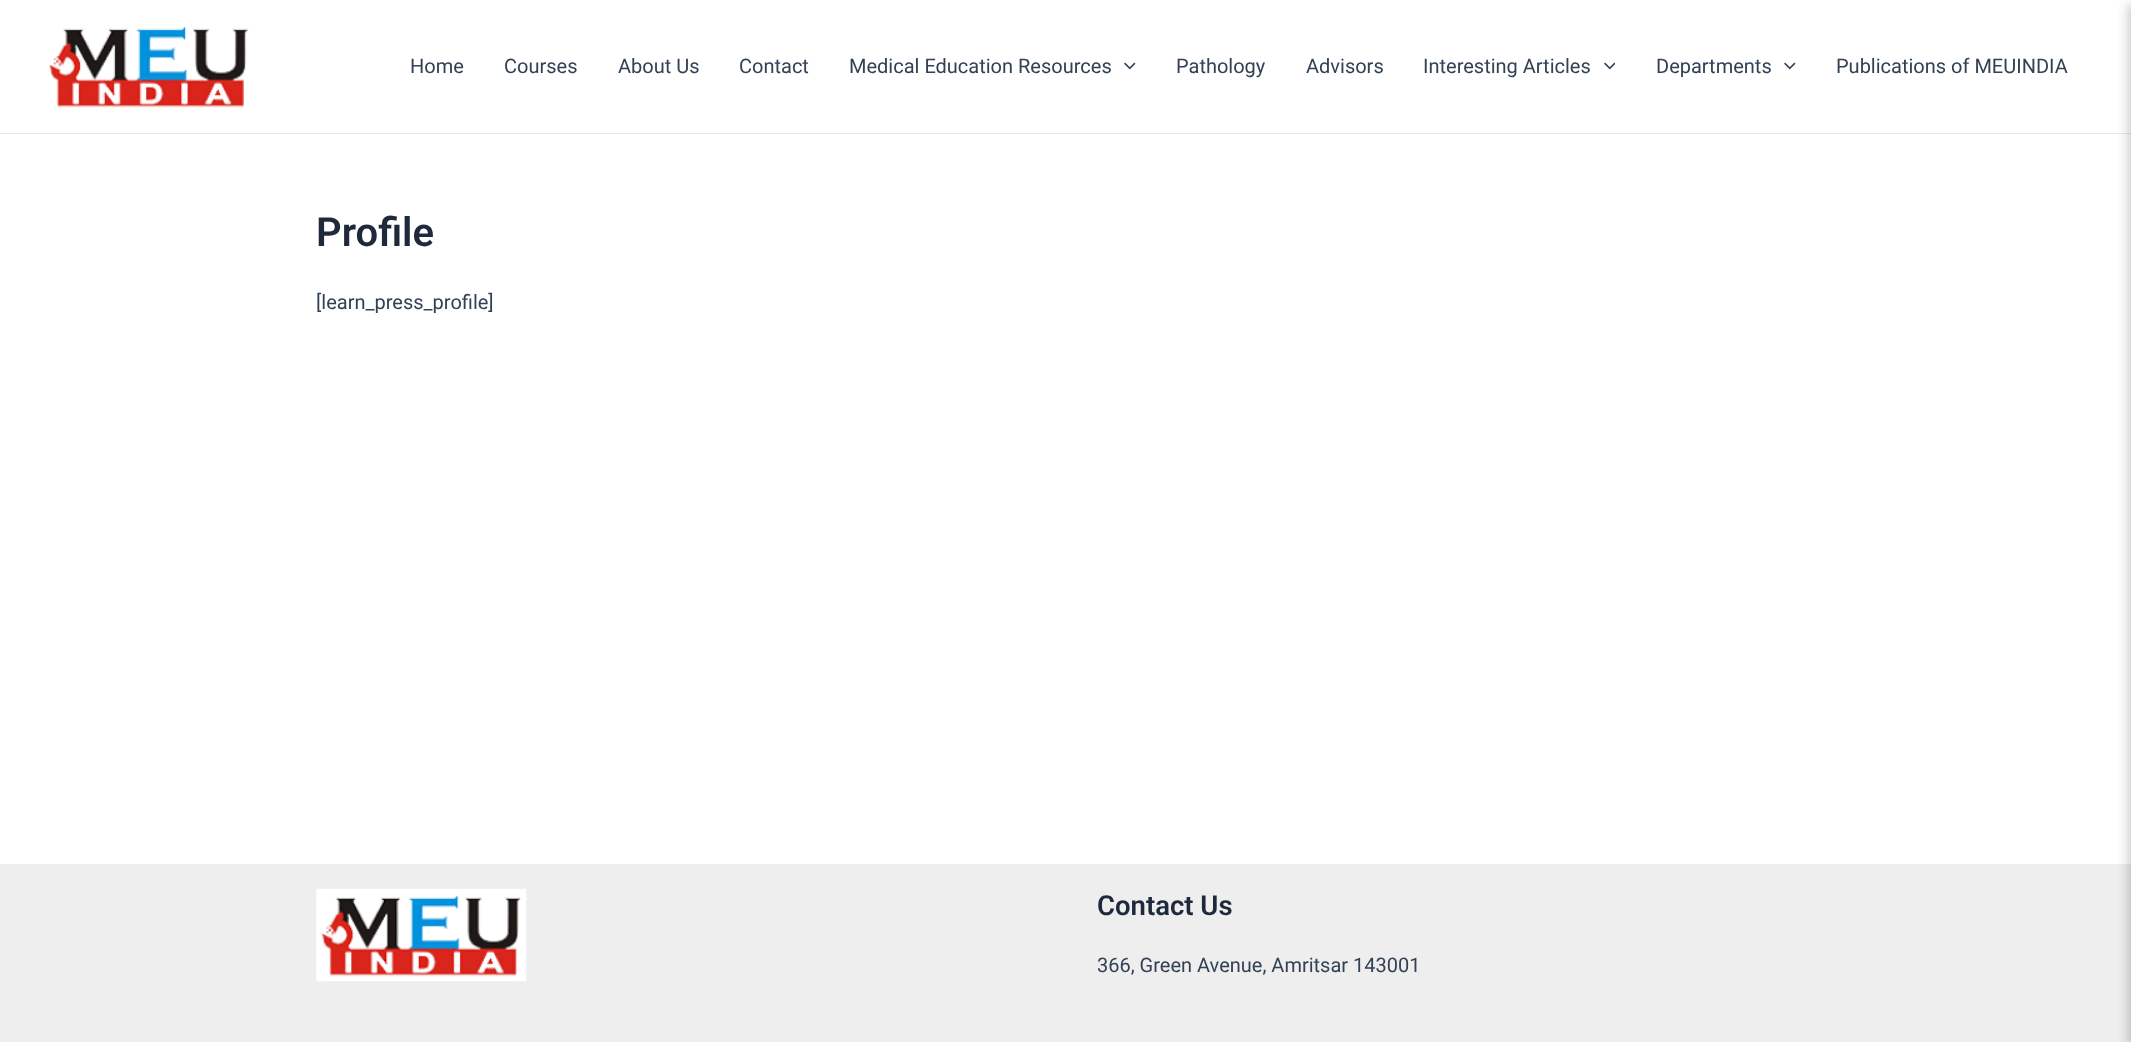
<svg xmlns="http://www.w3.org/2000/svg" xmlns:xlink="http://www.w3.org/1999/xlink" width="2131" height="1042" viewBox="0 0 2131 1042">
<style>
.cls-1{font:20px Roboto;fill:#334155}
.cls-2{font:600 40px Roboto;fill:#1e293b}
.cls-3{font:600 27.5px Roboto;fill:#1e293b}
</style>
<rect width="100%" height="100%" fill="#ffffff"/>
<rect fill="#e2e8f0" x="0" y="133" width="2131" height="1"/>
<image xlink:href="image0.png" x="48" y="26" width="201" height="82"/>
<image xlink:href="image1.png" x="1124" y="62" width="12" height="8"/>
<image xlink:href="image2.png" x="1604" y="62" width="11" height="8"/>
<image xlink:href="image1.png" x="1784" y="62" width="12" height="8"/>
<rect fill="#eeeeee" x="0" y="864" width="2131" height="178"/>
<image xlink:href="image3.png" x="316" y="888" width="211" height="94"/>
<rect fill="#000000" fill-opacity="0.2" filter="blur(5.5px)" x="2128" y="4" width="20" height="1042"/>
<text class="cls-1" x="410" y="73">Home</text>
<text class="cls-1" x="504" y="73">Courses</text>
<text class="cls-1" x="618" y="73">About Us</text>
<text class="cls-1" x="739" y="73">Contact</text>
<text class="cls-1" x="849" y="73">Medical Education Resources</text>
<text class="cls-1" x="1176" y="73">Pathology</text>
<text class="cls-1" x="1306" y="73">Advisors</text>
<text class="cls-1" x="1423" y="73">Interesting Articles</text>
<text class="cls-1" x="1656" y="73">Departments</text>
<text class="cls-1" x="1836" y="73">Publications of MEUINDIA</text>
<text class="cls-2" x="316" y="246">Profile</text>
<text class="cls-1" x="316" y="309">[learn_press_profile]</text>
<text class="cls-3" x="1097" y="915">Contact Us</text>
<text class="cls-1" x="1097" y="972">366, Green Avenue, Amritsar 143001</text>
</svg>
